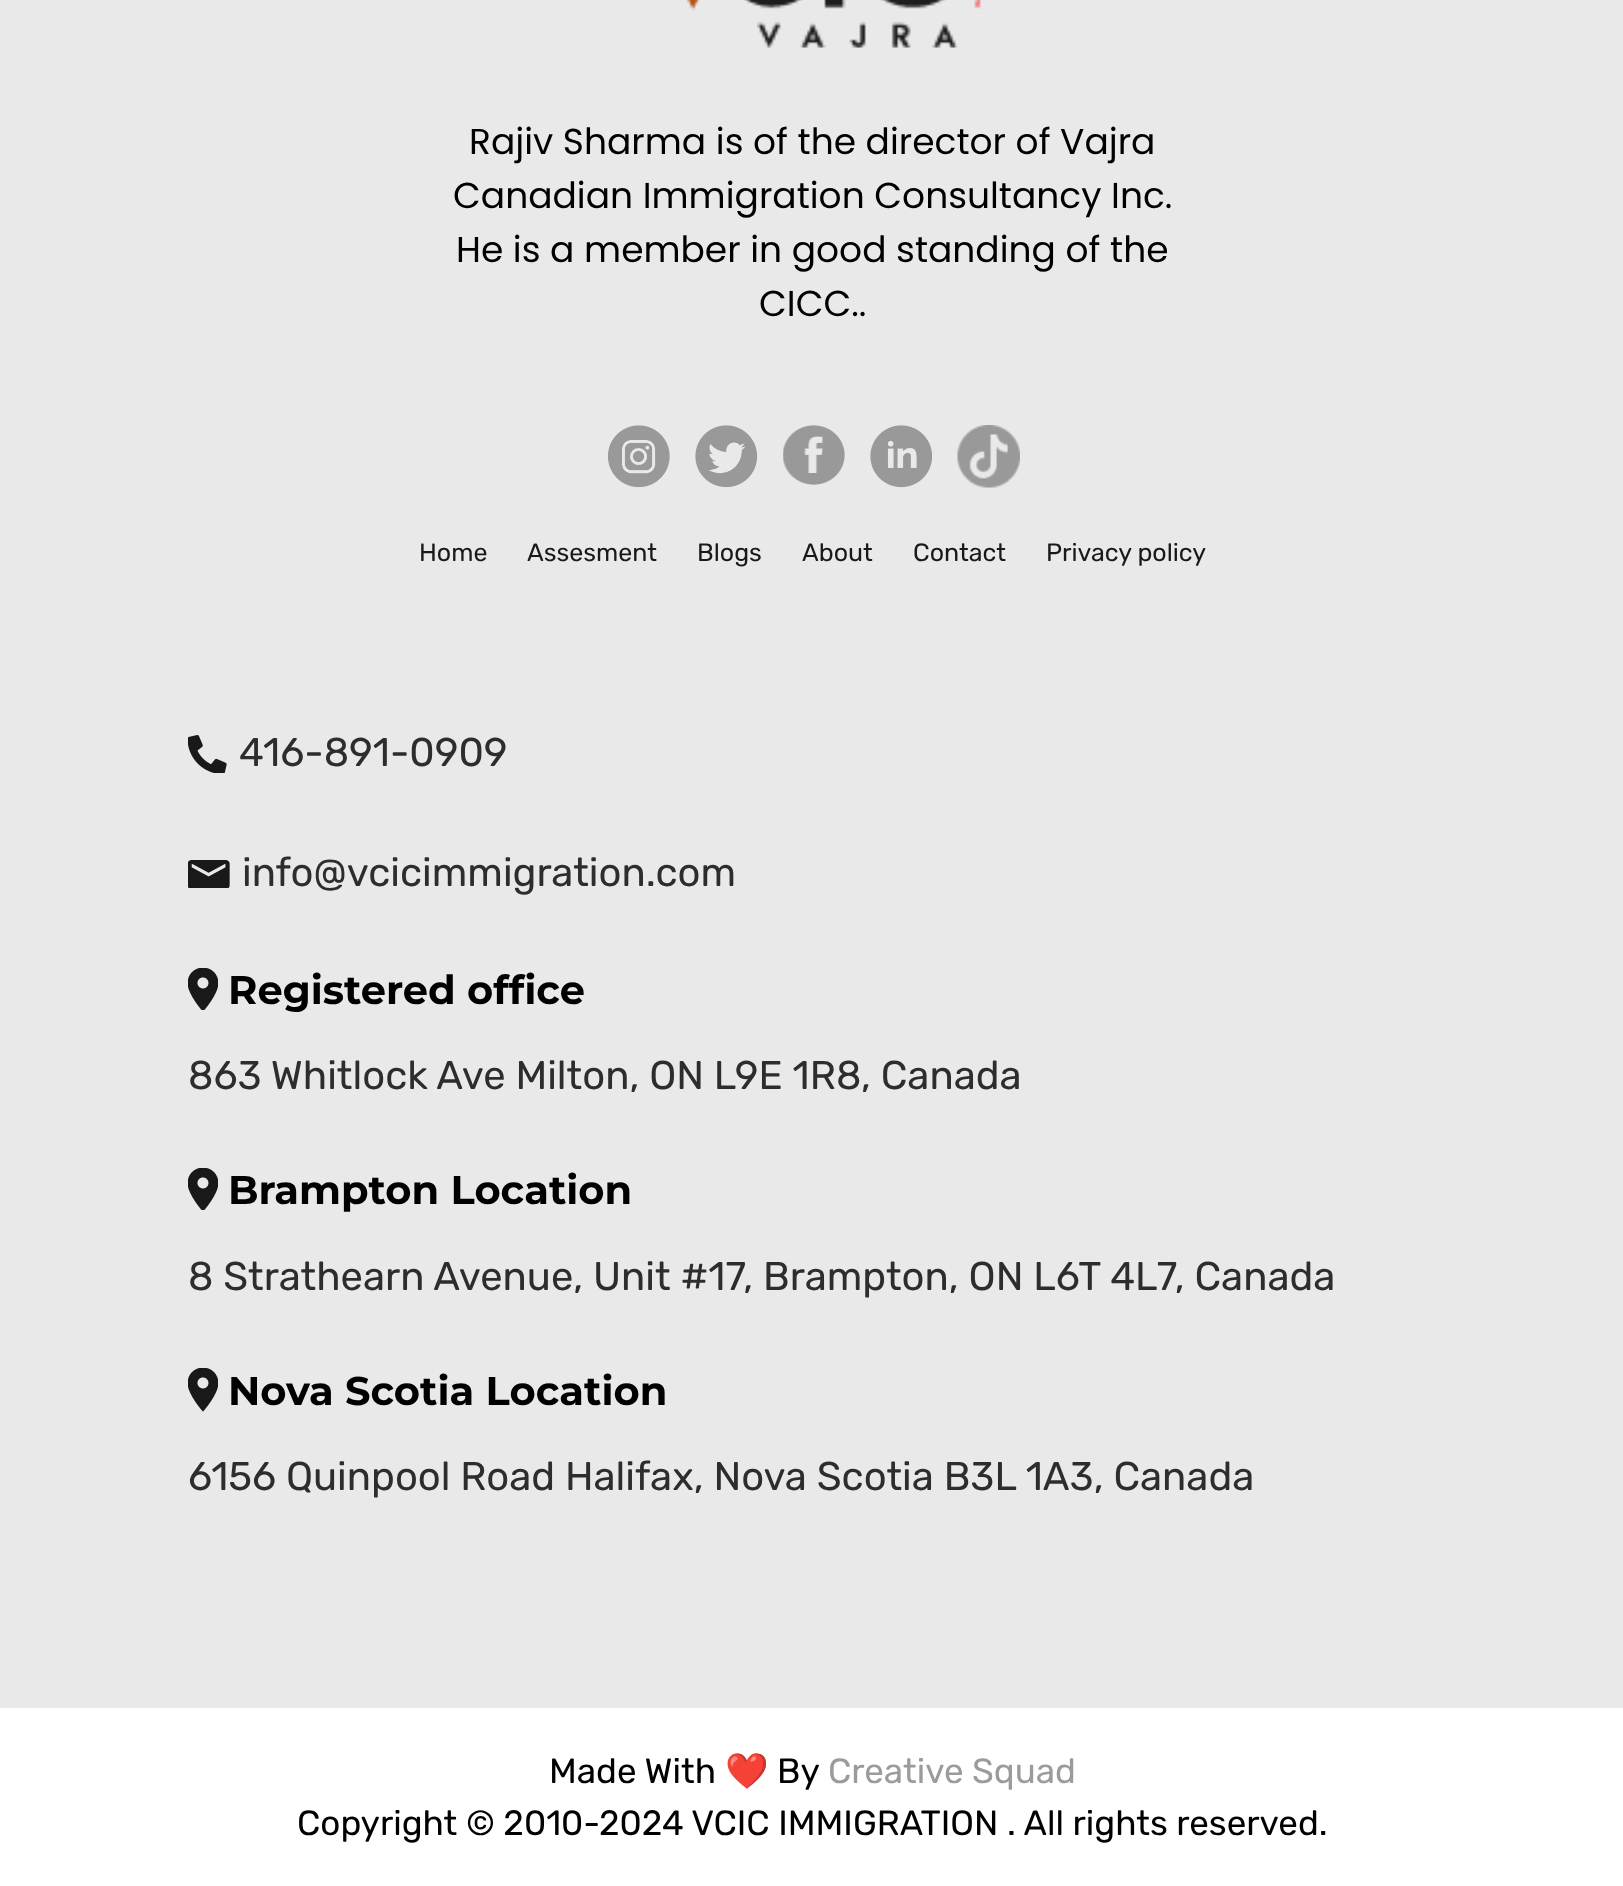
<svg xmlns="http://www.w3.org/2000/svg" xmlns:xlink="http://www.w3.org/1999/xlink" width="1623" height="1886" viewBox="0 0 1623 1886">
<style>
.cls-1{font:36px Poppins;fill:#000000}
.cls-2{font:300 25px Rubik;fill:#191919}
.cls-3{font:300 40px Rubik;fill:#2d2d2d}
.cls-4{font:bold 40px Montserrat;fill:#000000}
.cls-5{font:300 35px Rubik;fill:#000000}
.cls-6{font:35px Noto Color Emoji;fill:#000000}
.cls-7{font:300 35px Rubik;fill:#9b9b9b}
</style>
<rect width="100%" height="100%" fill="#e9e9e9"/>
<image xlink:href="image0.png" x="685" y="0" width="296" height="48"/>
<image xlink:href="image1.png" x="608" y="425" width="62" height="63"/>
<image xlink:href="image2.png" x="695" y="425" width="63" height="63"/>
<image xlink:href="image3.png" x="783" y="425" width="62" height="60"/>
<image xlink:href="image4.png" x="870" y="425" width="63" height="63"/>
<image xlink:href="image5.png" x="957" y="425" width="63" height="63"/>
<image xlink:href="image6.png" x="188" y="735" width="39" height="38"/>
<image xlink:href="image7.png" x="188" y="860" width="42" height="28"/>
<image xlink:href="image8.png" x="188" y="968" width="30" height="42"/>
<image xlink:href="image8.png" x="188" y="1168" width="30" height="42"/>
<image xlink:href="image9.png" x="188" y="1368" width="30" height="44"/>
<rect fill="#ffffff" x="0" y="1708" width="1623" height="178"/>
<text class="cls-1" x="469" y="154">Rajiv Sharma is of the director of Vajra</text>
<text class="cls-1" x="453" y="208">Canadian Immigration Consultancy Inc.</text>
<text class="cls-1" x="456" y="262">He is a member in good standing of the</text>
<text class="cls-1" x="759" y="316">CICC..</text>
<text class="cls-2" x="419" y="561">Home</text>
<text class="cls-2" x="527" y="561">Assesment</text>
<text class="cls-2" x="697" y="561">Blogs</text>
<text class="cls-2" x="802" y="561">About</text>
<text class="cls-2" x="913" y="561">Contact</text>
<text class="cls-2" x="1046" y="561">Privacy policy</text>
<text class="cls-3" x="239" y="766">416-891-0909</text>
<text class="cls-3" x="242" y="886">info@vcicimmigration.com</text>
<text class="cls-4" x="228" y="1004">Registered office</text>
<text class="cls-3" x="188" y="1089">863 Whitlock Ave Milton, ON L9E 1R8, Canada</text>
<text class="cls-4" x="228" y="1204">Brampton Location</text>
<text class="cls-3" x="188" y="1290">8 Strathearn Avenue, Unit #17, Brampton, ON L6T 4L7, Canada</text>
<text class="cls-4" x="228" y="1405">Nova Scotia Location</text>
<text class="cls-3" x="188" y="1490">6156 Quinpool Road Halifax, Nova Scotia B3L 1A3, Canada</text>
<text class="cls-5" x="549" y="1783">Made With</text>
<text class="cls-6" x="725" y="1783">❤️</text>
<text class="cls-5" x="777" y="1783">By</text>
<text class="cls-7" x="828" y="1783">Creative Squad</text>
<text class="cls-5" x="297" y="1835">Copyright © 2010-2024 VCIC IMMIGRATION . All rights reserved.</text>
</svg>
